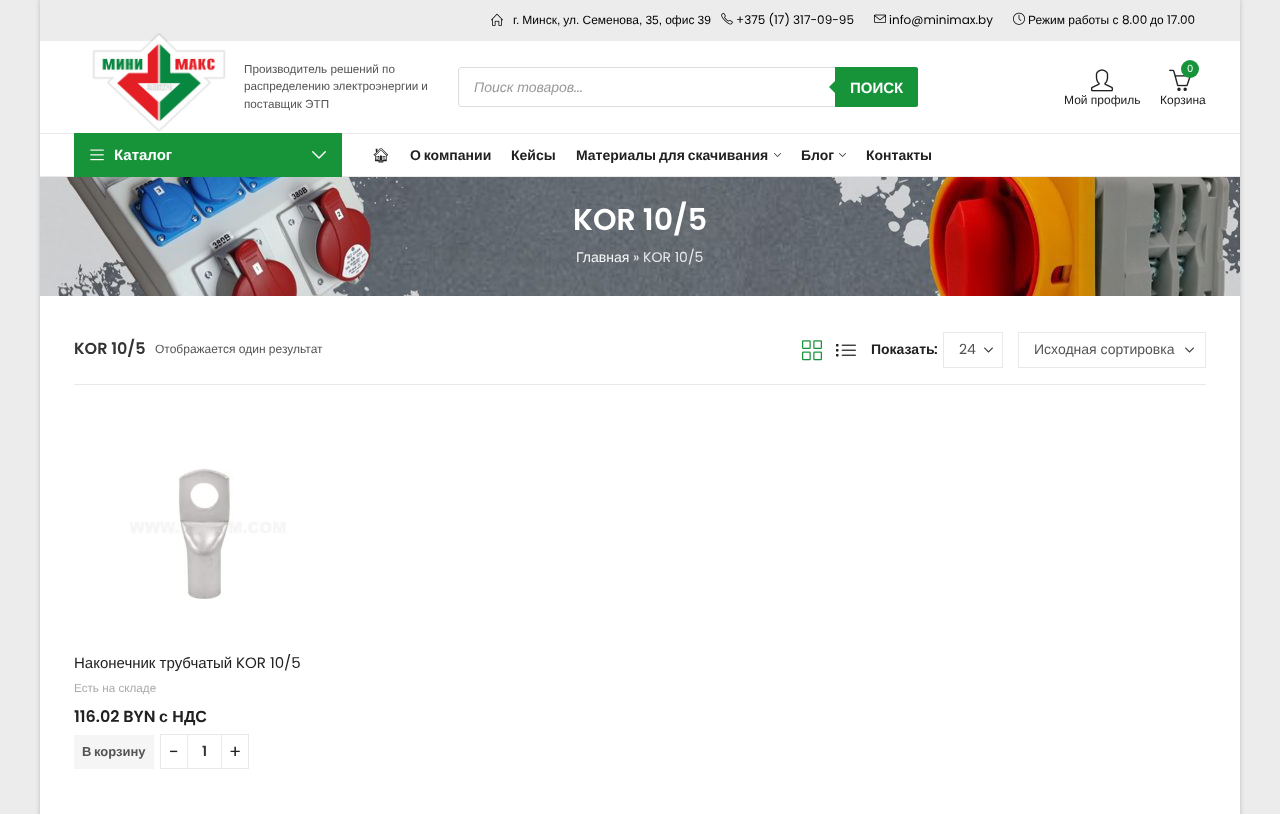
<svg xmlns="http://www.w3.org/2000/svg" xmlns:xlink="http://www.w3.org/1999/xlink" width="1280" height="814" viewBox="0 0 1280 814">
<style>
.cls-1{font:12px Liberation Sans;fill:#000000}
.cls-2{font:12px Poppins;fill:#000000}
.cls-3{font:11.7px Liberation Sans;fill:#545454}
.cls-4{font:italic 14px Liberation Sans;fill:#999999}
.cls-5{font:italic 14px Poppins;fill:#999999}
.cls-6{font:bold 15px Liberation Sans;fill:#ffffff}
.cls-7{font:12px Liberation Sans;fill:#212121}
.cls-8{font:10px Poppins;fill:#ffffff}
.cls-9{font:600 14px Noto Emoji;fill:#212121}
.cls-10{font:bold 14px Liberation Sans;fill:#212121}
.cls-11{font:600 30px Poppins;fill:#ffffff}
.cls-12{font:14px Liberation Sans;fill:#f7f8f8}
.cls-13{font:14px Poppins;fill:#e8e9eb}
.cls-14{font:600 16px Poppins;fill:#333333}
.cls-15{font:12px Liberation Sans;fill:#545454}
.cls-16{font:600 14px Poppins;fill:#212121}
.cls-17{font:14px Poppins;fill:#545454}
.cls-18{font:14px Liberation Sans;fill:#545454}
.cls-19{font:15px Liberation Sans;fill:#212121}
.cls-20{font:15px Poppins;fill:#212121}
.cls-21{font:11.7px Liberation Sans;fill:#aaaaaa}
.cls-22{font:600 16px Poppins;fill:#212121}
.cls-23{font:bold 16px Liberation Sans;fill:#212121}
.cls-24{font:bold 13px Liberation Sans;fill:#545454}
.cls-25{font:18px Poppins;fill:#212121}
.cls-26{font:600 14px Poppins;fill:#333333}
</style>
<rect width="100%" height="100%" fill="#ececec"/>
<rect fill="#000000" fill-opacity="0.2" filter="blur(2.5px)" x="40" y="0" width="1200" height="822"/>
<rect fill="#ffffff" x="40" y="41" width="1200" height="773"/>
<rect fill="#ececec" x="40" y="0" width="1200" height="41"/>
<image xlink:href="image0.png" x="491" y="13" width="12" height="13"/>
<image xlink:href="image1.png" x="721" y="12" width="12" height="13"/>
<image xlink:href="image2.png" x="874" y="14" width="12" height="9"/>
<image xlink:href="image3.png" x="1013" y="12" width="12" height="13"/>
<image xlink:href="image4.png" x="92" y="33" width="134" height="99"/>
<rect fill="none" stroke="#dddddd" x="458.5" y="67.5" width="459" height="39" rx="2.5"/>
<path fill="#17933a" d="M835 67H916C917 67 918 68 918 69V105C918 106 917 107 916 107H835Z"/>
<path fill="#17933a" d="M837 79V95L829 87Z"/>
<image xlink:href="image5.png" x="1091" y="69" width="22" height="23"/>
<image xlink:href="image6.png" x="1169" y="69" width="22" height="22"/>
<circle fill="#17933a" cx="1190" cy="69" r="9"/>
<rect fill="#e9e9e9" x="40" y="133" width="1200" height="1"/>
<rect fill="#e9e9e9" x="40" y="176" width="1200" height="1"/>
<rect fill="#17933a" x="74" y="133" width="268" height="44"/>
<image xlink:href="image7.png" x="90" y="149" width="14" height="12"/>
<image xlink:href="image8.png" x="312" y="151" width="14" height="8"/>
<image xlink:href="image9.png" x="774" y="153" width="7" height="4"/>
<image xlink:href="image9.png" x="839" y="153" width="7" height="4"/>
<image xlink:href="image10.png" x="40" y="177" width="1200" height="119"/>
<rect fill="#e9e9e9" x="74" y="384" width="1132" height="1"/>
<image xlink:href="image11.png" x="802" y="340" width="20" height="21"/>
<image xlink:href="image12.png" x="836" y="344" width="20" height="13"/>
<image xlink:href="image13.png" x="984" y="347" width="9" height="6"/>
<rect fill="none" stroke="#e9e9e9" x="943.5" y="332.5" width="59" height="35"/>
<image xlink:href="image13.png" x="1185" y="347" width="9" height="6"/>
<rect fill="none" stroke="#e9e9e9" x="1018.5" y="332.5" width="187" height="35"/>
<image xlink:href="image14.png" x="130" y="468" width="156" height="131"/>
<rect fill="#f5f5f5" x="74" y="735" width="80" height="34"/>
<rect fill="#e9e9e9" x="160" y="734" width="27" height="1"/>
<rect fill="#e9e9e9" x="160" y="768" width="27" height="1"/>
<rect fill="#e9e9e9" x="160" y="734" width="1" height="35"/>
<rect fill="none" stroke="#e9e9e9" x="187.5" y="734.5" width="34" height="34"/>
<rect fill="#e9e9e9" x="222" y="734" width="27" height="1"/>
<rect fill="#e9e9e9" x="248" y="734" width="1" height="35"/>
<rect fill="#e9e9e9" x="222" y="768" width="27" height="1"/>
<text class="cls-1" x="513" y="24" word-spacing="-0.25">г. Минск, ул. Семенова, 35, офис 39</text>
<text class="cls-2" x="736" y="24">+375 (17) 317-09-95</text>
<text class="cls-2" x="889" y="24">info@minimax.by</text>
<text class="cls-1" x="1028" y="24">Режим работы с</text>
<text class="cls-2" x="1122" y="24">8.00</text>
<text class="cls-1" x="1150" y="24">до</text>
<text class="cls-2" x="1167" y="24">17.00</text>
<text class="cls-3"><tspan x="244" y="73">Производитель решений по</tspan><tspan x="244" y="90" word-spacing="-0.25">распределению электроэнергии и</tspan><tspan x="244" y="108">поставщик ЭТП</tspan></text>
<text class="cls-4" x="474" y="92">Поиск товаров</text>
<text class="cls-5" x="574" y="92">...</text>
<text class="cls-6" x="850" y="93">ПОИСК</text>
<text class="cls-7" x="1064" y="104">Мой профиль</text>
<text class="cls-8" x="1187" y="72">0</text>
<text class="cls-7" x="1160" y="104">Корзина</text>
<text class="cls-6" x="114" y="160">Каталог</text>
<text class="cls-9" x="372" y="160">🏠︎</text>
<text class="cls-10" x="410" y="160" word-spacing="-1">О компании</text>
<text class="cls-10" x="511" y="160">Кейсы</text>
<text class="cls-10" x="576" y="160" word-spacing="-1">Материалы для скачивания</text>
<text class="cls-10" x="801" y="160">Блог</text>
<text class="cls-10" x="866" y="160">Контакты</text>
<text class="cls-11" x="573" y="230">KOR 10/5</text>
<text class="cls-12" x="576" y="262">Главная</text>
<text class="cls-13" x="633" y="262">»</text>
<text class="cls-13" x="643" y="262">KOR 10/5</text>
<text class="cls-14" x="74" y="354">KOR 10/5</text>
<text class="cls-15" x="155" y="353">Отображается один результат</text>
<text class="cls-10" x="871" y="354">Показать</text>
<text class="cls-16" x="934" y="354">:</text>
<text class="cls-17" x="959" y="354">24</text>
<text class="cls-18" x="1034" y="354">Исходная сортировка</text>
<text class="cls-19" x="74" y="668">Наконечник трубчатый</text>
<text class="cls-20" x="236" y="668">KOR 10/5</text>
<text class="cls-21" x="74" y="692">Есть на складе</text>
<text class="cls-22" x="74" y="722">116.02 BYN</text>
<text class="cls-23" x="159" y="722">с НДС</text>
<text class="cls-24" x="82" y="756" word-spacing="-1">В корзину</text>
<text class="cls-25" x="169" y="758">-</text>
<text class="cls-26" x="202" y="756">1</text>
<text class="cls-25" x="229" y="758">+</text>
</svg>
